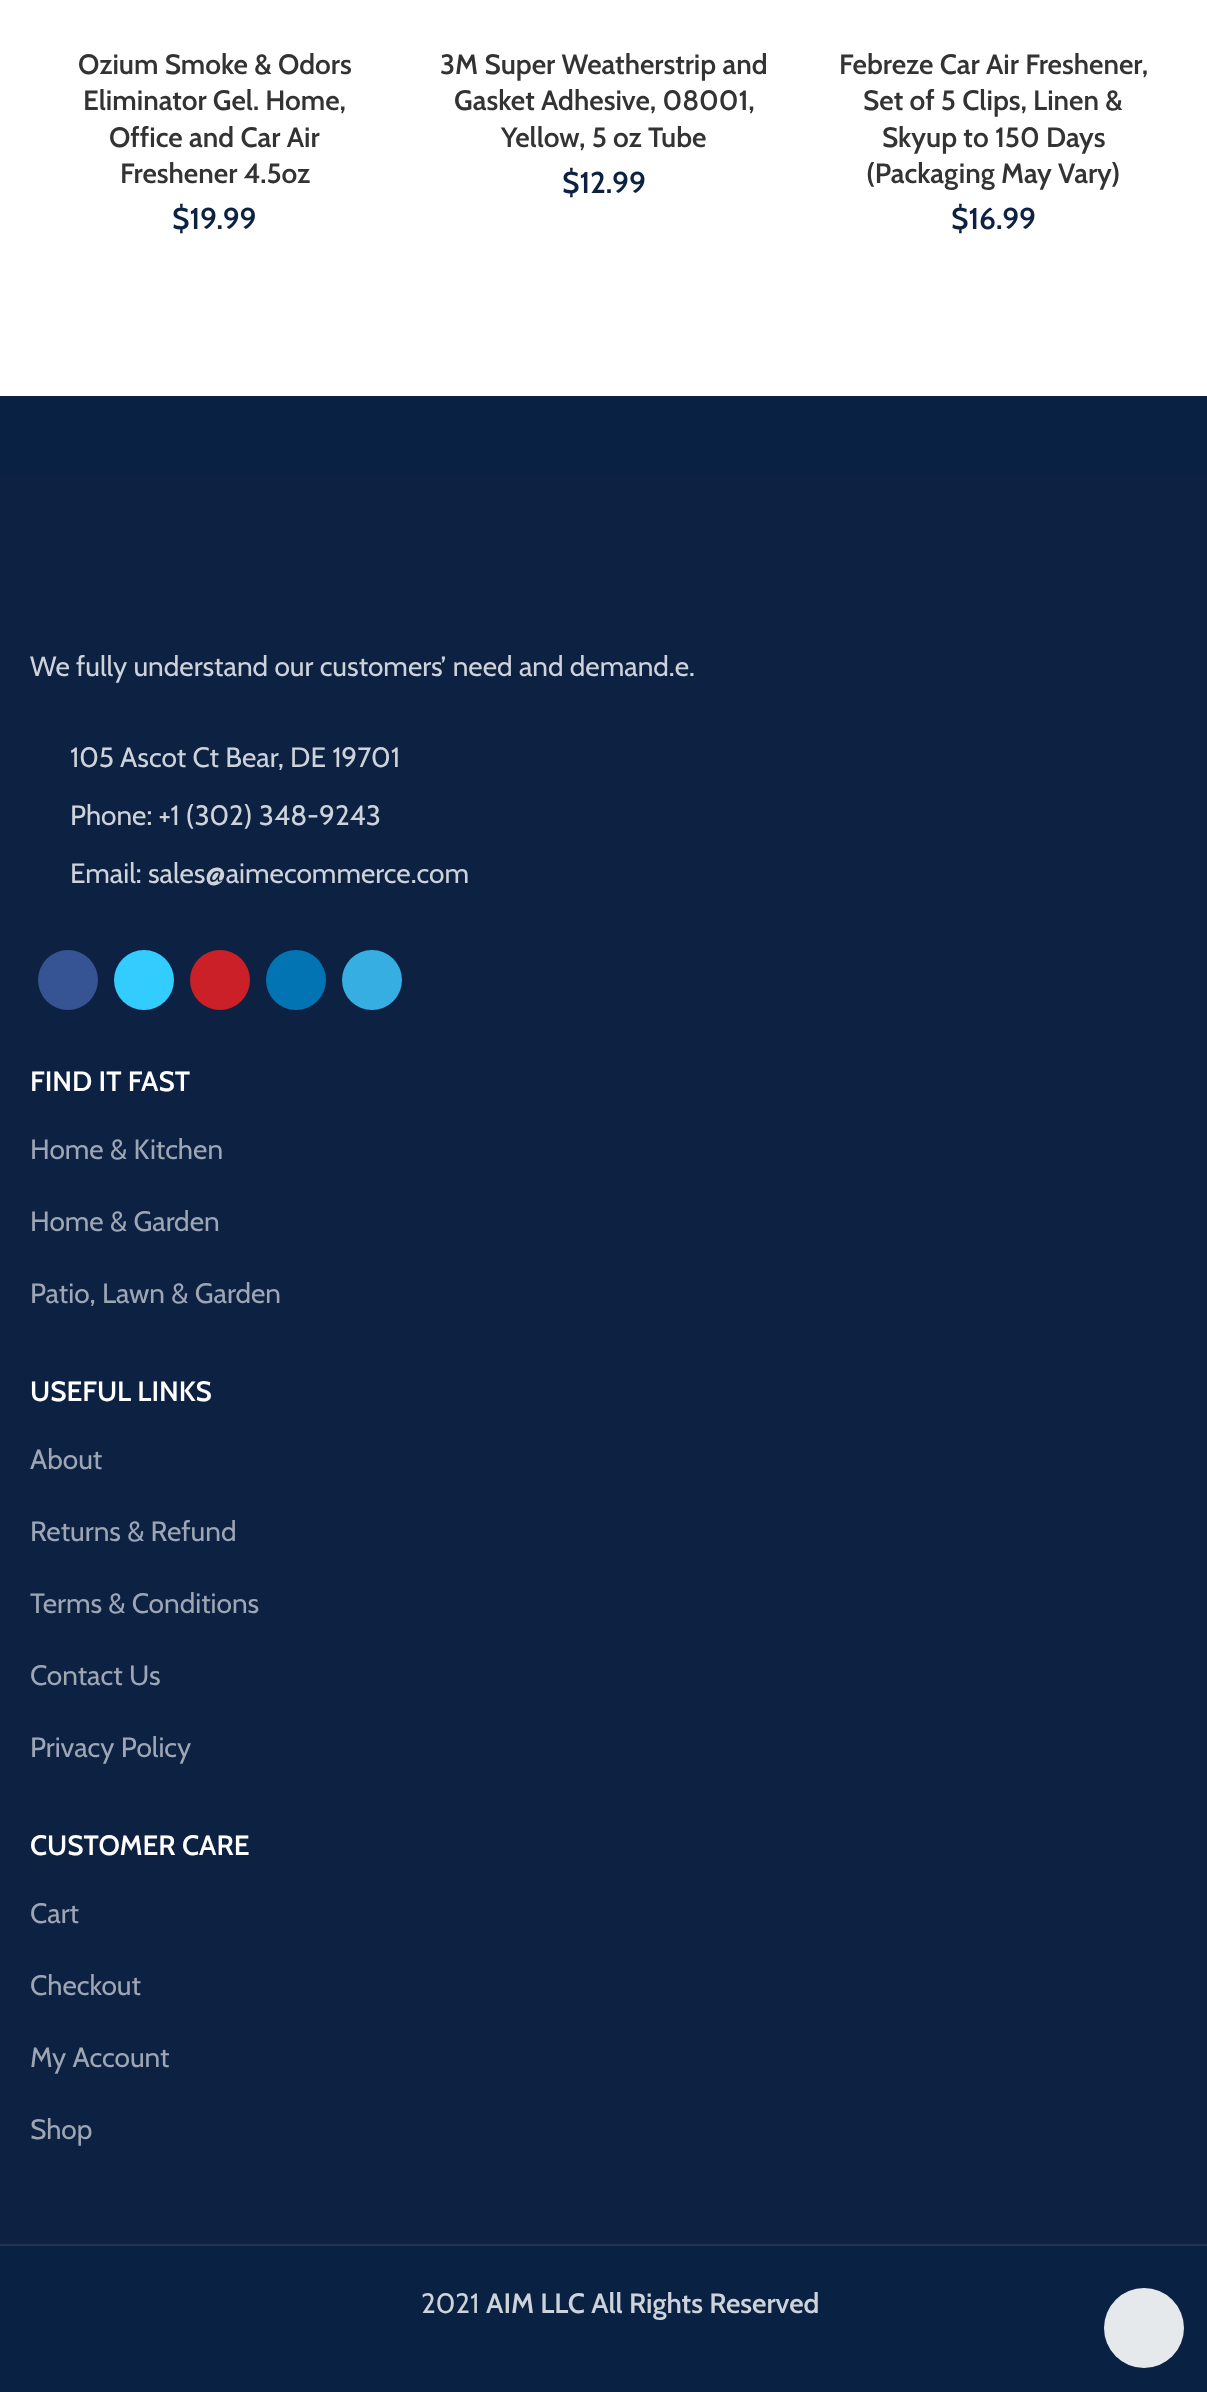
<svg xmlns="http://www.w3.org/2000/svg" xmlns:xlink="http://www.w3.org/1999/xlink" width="1207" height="2392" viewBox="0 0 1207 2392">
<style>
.cls-1{font:600 28px Cabin;fill:#333333}
.cls-2{font:600 30px Cabin;fill:#0d2143}
.cls-3{font:28px Cabin;fill:#ced3d9}
.cls-4{font:600 28px Cabin;fill:#ffffff}
.cls-5{font:28px Cabin;fill:#9ea6b4}
.cls-6{font:600 28px Cabin;fill:#ced3d9}
</style>
<rect width="100%" height="100%" fill="#ffffff"/>
<rect fill="#092143" x="0" y="396" width="1207" height="1996"/>
<rect fill="#0d2143" x="0" y="476" width="1207" height="1768"/>
<rect fill="#24344f" x="0" y="2244" width="1207" height="2"/>
<circle fill="#365493" cx="68" cy="980" r="30"/>
<circle fill="#33ccff" cx="144" cy="980" r="30"/>
<circle fill="#cb2027" cx="220" cy="980" r="30"/>
<circle fill="#0274b3" cx="296" cy="980" r="30"/>
<circle fill="#37aee2" cx="372" cy="980" r="30"/>
<circle fill="#ffffff" fill-opacity="0.9" cx="1144" cy="2328" r="40"/>
<text class="cls-1" x="78" y="74">Ozium Smoke &amp; Odors</text>
<text class="cls-1" x="83" y="110">Eliminator Gel. Home,</text>
<text class="cls-1" x="109" y="147">Office and Car Air</text>
<text class="cls-1" x="120" y="183">Freshener 4.5oz</text>
<text class="cls-2" x="172" y="229">$19.99</text>
<text class="cls-1" x="440" y="74">3M Super Weatherstrip and</text>
<text class="cls-1" x="454" y="110">Gasket Adhesive, 08001,</text>
<text class="cls-1" x="501" y="147">Yellow, 5 oz Tube</text>
<text class="cls-2" x="562" y="193">$12.99</text>
<text class="cls-1" x="839" y="74">Febreze Car Air Freshener,</text>
<text class="cls-1" x="863" y="110">Set of 5 Clips, Linen &amp;</text>
<text class="cls-1" x="882" y="147">Skyup to 150 Days</text>
<text class="cls-1" x="866" y="183">(Packaging May Vary)</text>
<text class="cls-2" x="951" y="229">$16.99</text>
<text class="cls-3" x="30" y="676">We fully understand our customers’ need and demand.e.</text>
<text class="cls-3" x="70" y="767">105 Ascot Ct Bear, DE 19701</text>
<text class="cls-3" x="70" y="825">Phone: +1 (302) 348-9243</text>
<text class="cls-3" x="70" y="883">Email: sales@aimecommerce.com</text>
<text class="cls-4" x="30" y="1091">FIND IT FAST</text>
<text class="cls-5" x="30" y="1159">Home &amp; Kitchen</text>
<text class="cls-5" x="30" y="1231">Home &amp; Garden</text>
<text class="cls-5" x="30" y="1303">Patio, Lawn &amp; Garden</text>
<text class="cls-4" x="30" y="1401">USEFUL LINKS</text>
<text class="cls-5" x="30" y="1469">About</text>
<text class="cls-5" x="30" y="1541">Returns &amp; Refund</text>
<text class="cls-5" x="30" y="1613">Terms &amp; Conditions</text>
<text class="cls-5" x="30" y="1685">Contact Us</text>
<text class="cls-5" x="30" y="1757">Privacy Policy</text>
<text class="cls-4" x="30" y="1855">CUSTOMER CARE</text>
<text class="cls-5" x="30" y="1923">Cart</text>
<text class="cls-5" x="30" y="1995">Checkout</text>
<text class="cls-5" x="30" y="2067">My Account</text>
<text class="cls-5" x="30" y="2139">Shop</text>
<text class="cls-3" x="421" y="2313">2021</text>
<text class="cls-6" x="486" y="2313">AIM LLC All Rights Reserved</text>
</svg>
